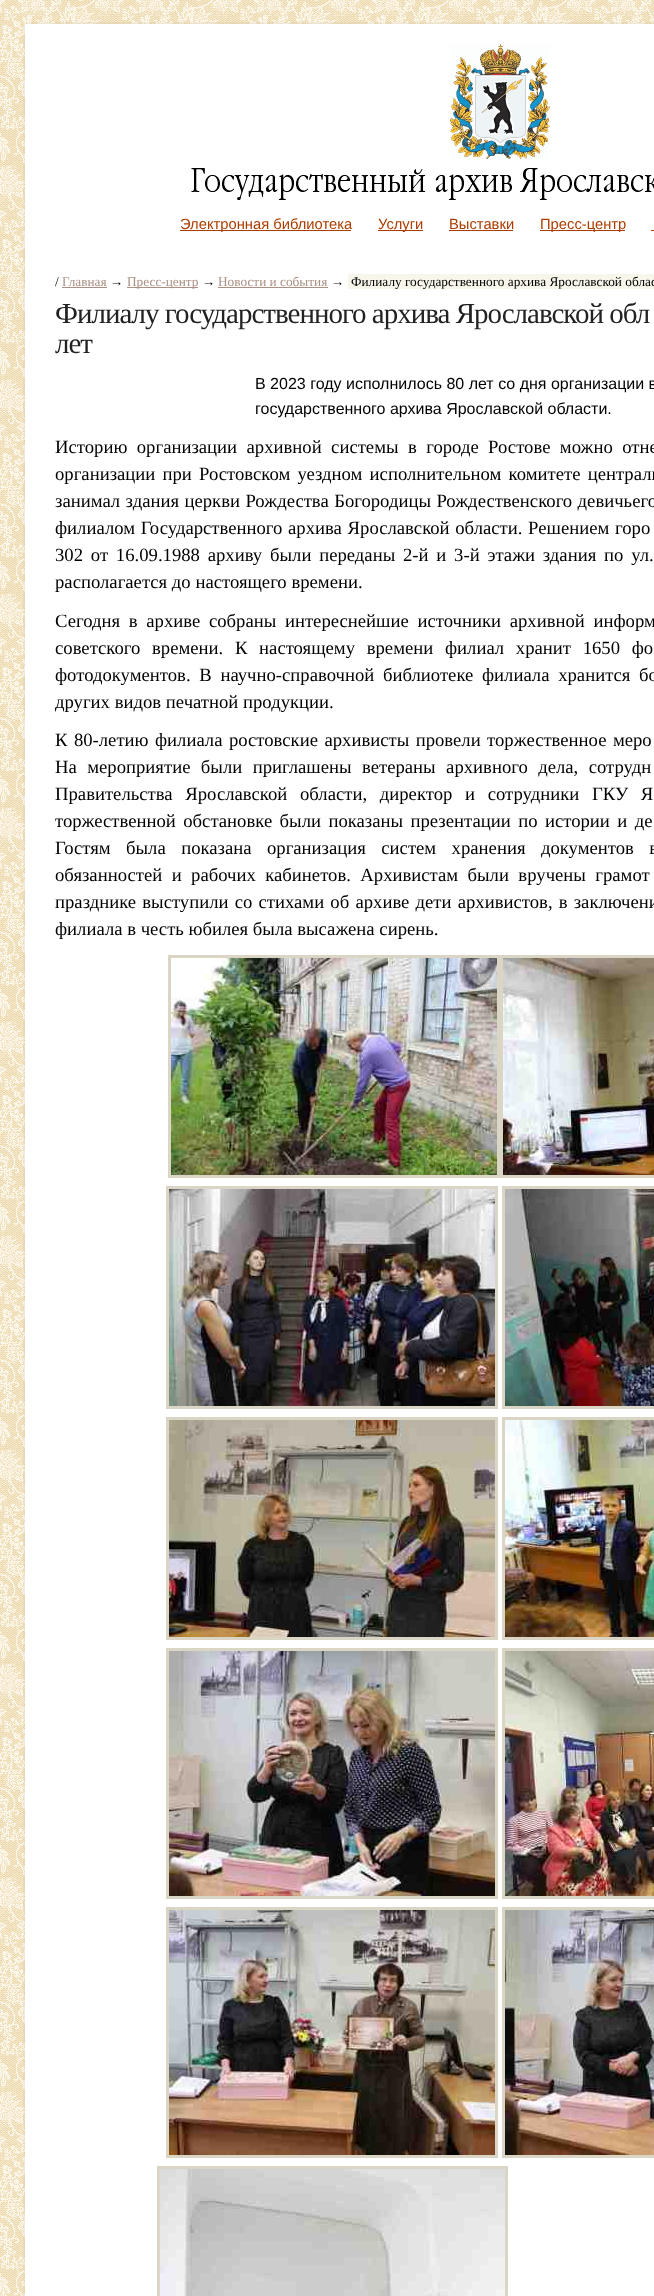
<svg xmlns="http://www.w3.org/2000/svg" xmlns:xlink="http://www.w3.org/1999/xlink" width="654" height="2296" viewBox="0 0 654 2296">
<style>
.cls-1{font:14.75px Liberation Sans;fill:#ac3d00}
.cls-2{font:13.3px Liberation Serif;fill:#000000}
.cls-3{font:13.3px Liberation Serif;fill:#aa9084}
.cls-4{font:29px Liberation Serif;letter-spacing:-1px;fill:#222222}
.cls-5{font:16px Liberation Sans;fill:#000000}
.cls-6{font:18.7px Liberation Serif;fill:#000000}
</style>
<rect width="100%" height="100%" fill="#ffffff"/>
<image xlink:href="image0.png" x="0" y="0" width="654" height="2296"/>
<image xlink:href="image1.png" x="24" y="22" width="630" height="2"/>
<image xlink:href="image2.png" x="23" y="24" width="2" height="2272"/>
<rect fill="#ffffff" x="25" y="24" width="629" height="2272"/>
<image xlink:href="image3.png" x="450" y="44" width="100" height="115"/>
<image xlink:href="image4.png" x="191" y="168" width="463" height="32"/>
<rect fill="#ac3d00" x="180" y="230" width="171" height="1"/>
<rect fill="#ac3d00" x="378" y="230" width="45" height="1"/>
<rect fill="#ac3d00" x="449" y="230" width="64" height="1"/>
<rect fill="#ac3d00" x="540" y="230" width="85" height="1"/>
<rect fill="#ac3d00" x="651" y="230" width="3" height="1"/>
<rect fill="#aa9084" x="62" y="287" width="45" height="1"/>
<rect fill="#aa9084" x="127" y="287" width="71" height="1"/>
<rect fill="#aa9084" x="218" y="287" width="110" height="1"/>
<rect fill="#f8f5ea" x="348" y="274" width="306" height="15"/>
<rect fill="none" stroke="#dad5c5" stroke-width="3" x="169.5" y="956.5" width="329" height="220"/>
<rect fill="none" stroke="#dad5c5" stroke-width="3" x="501.5" y="956.5" width="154" height="220"/>
<image xlink:href="image5.png" x="171" y="958" width="326" height="217"/>
<image xlink:href="image6.png" x="503" y="958" width="151" height="217"/>
<rect fill="none" stroke="#dad5c5" stroke-width="3" x="167.5" y="1187.5" width="329" height="220"/>
<rect fill="none" stroke="#dad5c5" stroke-width="3" x="503.5" y="1187.5" width="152" height="220"/>
<image xlink:href="image7.png" x="169" y="1189" width="326" height="217"/>
<image xlink:href="image8.png" x="505" y="1189" width="149" height="217"/>
<rect fill="none" stroke="#dad5c5" stroke-width="3" x="167.5" y="1418.5" width="329" height="220"/>
<rect fill="none" stroke="#dad5c5" stroke-width="3" x="503.5" y="1418.5" width="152" height="220"/>
<image xlink:href="image9.png" x="169" y="1420" width="326" height="217"/>
<image xlink:href="image10.png" x="505" y="1420" width="149" height="217"/>
<rect fill="none" stroke="#dad5c5" stroke-width="3" x="167.5" y="1649.5" width="329" height="248"/>
<rect fill="none" stroke="#dad5c5" stroke-width="3" x="503.5" y="1649.5" width="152" height="248"/>
<image xlink:href="image11.png" x="169" y="1651" width="326" height="245"/>
<image xlink:href="image12.png" x="505" y="1651" width="149" height="245"/>
<rect fill="none" stroke="#dad5c5" stroke-width="3" x="167.5" y="1908.5" width="329" height="248"/>
<rect fill="none" stroke="#dad5c5" stroke-width="3" x="503.5" y="1908.5" width="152" height="248"/>
<image xlink:href="image13.png" x="169" y="1910" width="326" height="245"/>
<image xlink:href="image14.png" x="505" y="1910" width="149" height="245"/>
<rect fill="none" stroke="#dad5c5" stroke-width="3" x="158.5" y="2167.5" width="348" height="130"/>
<image xlink:href="image15.png" x="160" y="2169" width="345" height="127"/>
<text class="cls-1" x="180" y="229">Электронная библиотека</text>
<text class="cls-1" x="378" y="229">Услуги</text>
<text class="cls-1" x="449" y="229">Выставки</text>
<text class="cls-1" x="540" y="229">Пресс-центр</text>
<text class="cls-2" x="55" y="286">/</text>
<text class="cls-3" x="62" y="286">Главная</text>
<text class="cls-2" x="110" y="286">→</text>
<text class="cls-3" x="127" y="286">Пресс-центр</text>
<text class="cls-2" x="202" y="286">→</text>
<text class="cls-3" x="218" y="286">Новости и события</text>
<text class="cls-2" x="331" y="286">→</text>
<text class="cls-2" x="351" y="286">Филиалу государственного архива Ярославской облас</text>
<text class="cls-4"><tspan x="55" y="323">Филиалу государственного архива Ярославской обл</tspan><tspan x="55" y="353">лет</tspan></text>
<text class="cls-5"><tspan x="255" y="389">В 2023 году исполнилось 80 лет со дня организации в</tspan><tspan x="255" y="414">государственного архива Ярославской области.</tspan></text>
<text class="cls-6"><tspan x="55" y="453" word-spacing="4.75">Историю организации архивной системы в городе Ростове можно отне</tspan><tspan x="55" y="480" word-spacing="2.5">организации при Ростовском уездном исполнительном комитете централь</tspan><tspan x="55" y="507" word-spacing="0.75">занимал здания церкви Рождества Богородицы Рождественского девичьего</tspan><tspan x="55" y="534" word-spacing="1">филиалом Государственного архива Ярославской области. Решением горо</tspan><tspan x="55" y="561" word-spacing="3.1">302 от 16.09.1988 архиву были переданы 2-й и 3-й этажи здания по ул.</tspan><tspan x="55" y="588">располагается до настоящего времени.</tspan></text>
<text class="cls-6"><tspan x="55" y="627" word-spacing="4">Сегодня в архиве собраны интереснейшие источники архивной информ</tspan><tspan x="55" y="654" word-spacing="7">советского времени. К настоящему времени филиал хранит 1650 фо</tspan><tspan x="55" y="681" word-spacing="4">фотодокументов. В научно-справочной библиотеке филиала хранится бо</tspan><tspan x="55" y="708">других видов печатной продукции.</tspan></text>
<text class="cls-6"><tspan x="55" y="746" word-spacing="1.75">К 80-летию филиала ростовские архивисты провели торжественное меро</tspan><tspan x="55" y="773" word-spacing="5.75">На мероприятие были приглашены ветераны архивного дела, сотрудн</tspan><tspan x="55" y="800" word-spacing="8">Правительства Ярославской области, директор и сотрудники ГКУ Я</tspan><tspan x="55" y="827" word-spacing="2.75">торжественной обстановке были показаны презентации по истории и де</tspan><tspan x="55" y="854" word-spacing="10.75">Гостям была показана организация систем хранения документов в</tspan><tspan x="55" y="881" word-spacing="4.75">обязанностей и рабочих кабинетов. Архивистам были вручены грамот</tspan><tspan x="55" y="908" word-spacing="1.5">празднике выступили со стихами об архиве дети архивистов, в заключени</tspan><tspan x="55" y="935">филиала в честь юбилея была высажена сирень.</tspan></text>
</svg>
